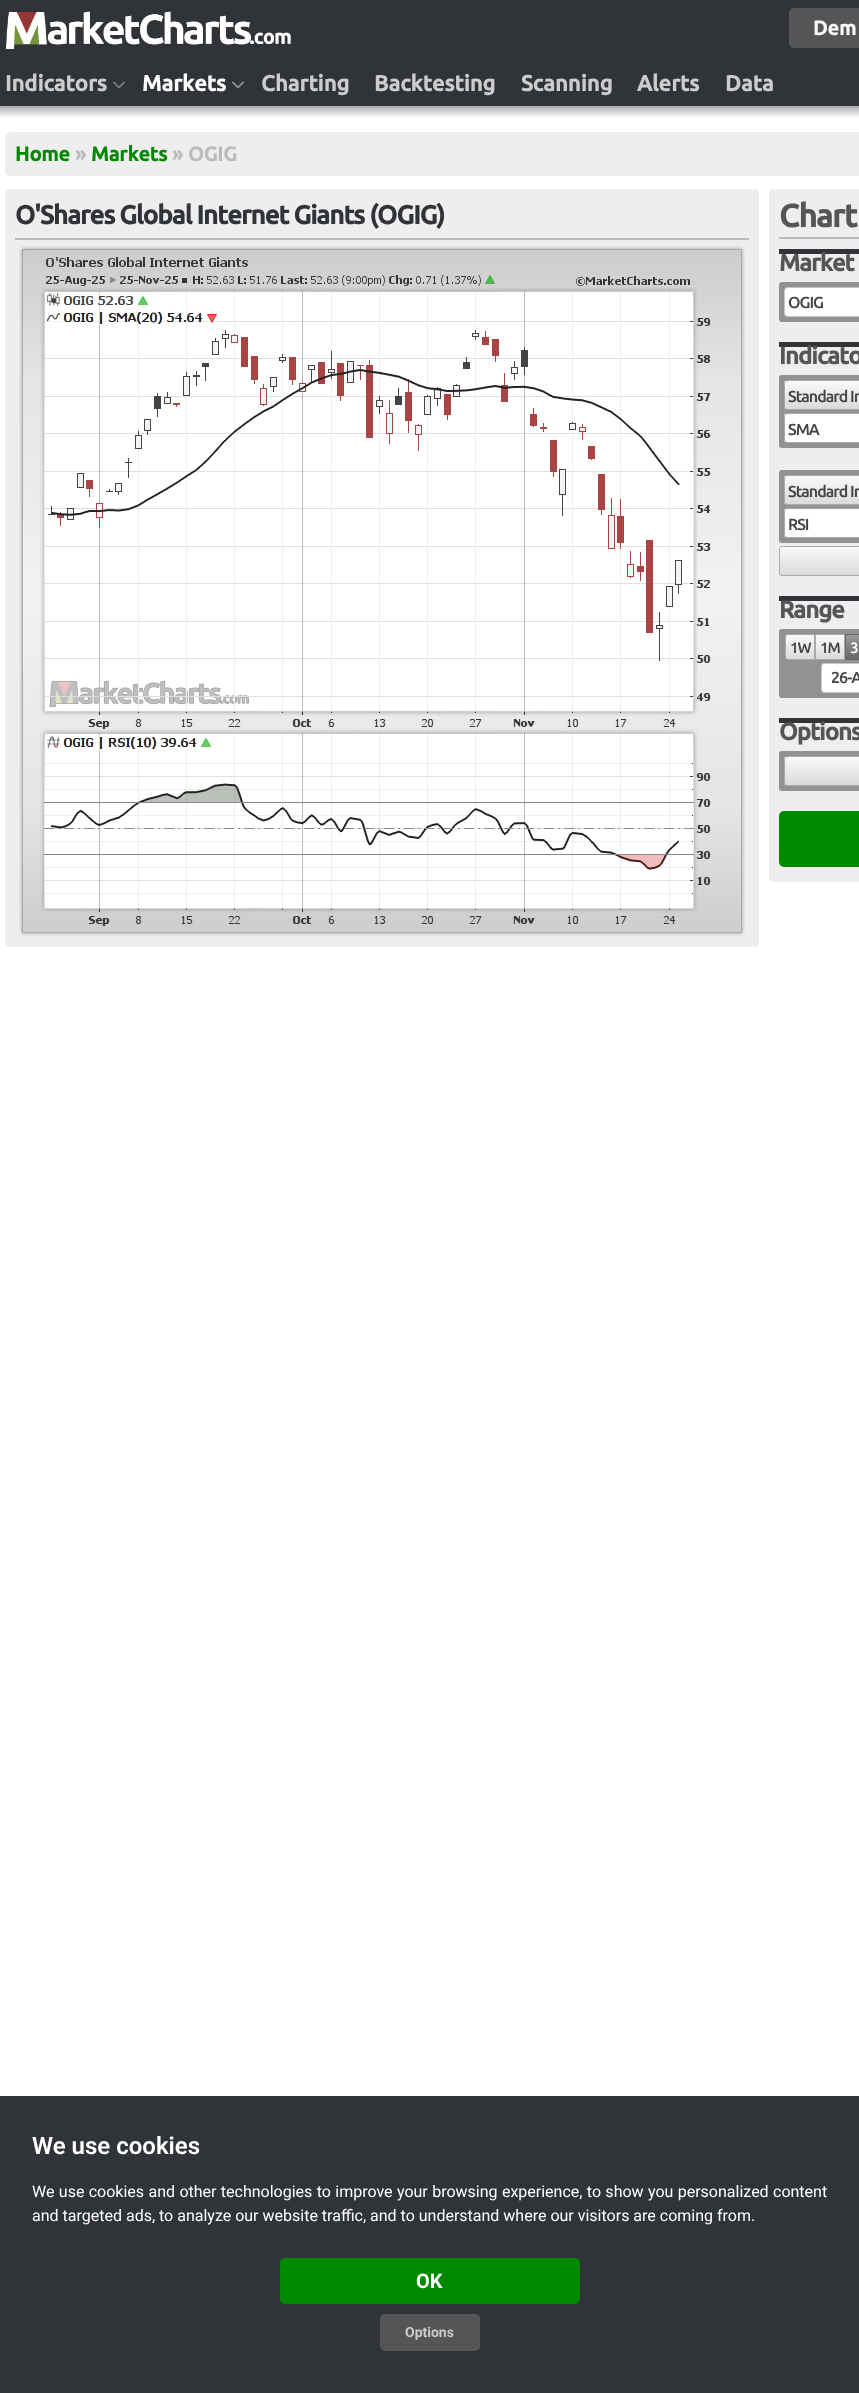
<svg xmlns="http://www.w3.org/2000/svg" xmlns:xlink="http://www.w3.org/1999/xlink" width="859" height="2393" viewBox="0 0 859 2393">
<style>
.cls-1{font:bold 20px Ubuntu;fill:#f8f8f8}
.cls-2{font:bold 22px Ubuntu;fill:#cccccc}
.cls-3{font:bold 22px Ubuntu;fill:#ffffff}
.cls-4{font:bold 20px Ubuntu;fill:#008800}
.cls-5{font:bold 20px Ubuntu;fill:#bbbbbb}
.cls-6{font:bold 26px Ubuntu;letter-spacing:-1px;fill:#303438}
.cls-7{font:bold 32px Ubuntu;letter-spacing:-1px;fill:#555555}
.cls-8{font:bold 24px Ubuntu;letter-spacing:-1px;fill:#555555}
.cls-9{font:500 16px Ubuntu;letter-spacing:-1px;fill:#444444}
.cls-10{font:500 15px Ubuntu;letter-spacing:-1px;fill:#444444}
.cls-11{font:500 15px Ubuntu;letter-spacing:-1px;fill:#ffffff}
.cls-12{font:600 24px Roboto;fill:#ffffff}
.cls-13{font:16px Roboto;fill:#ffffff}
.cls-14{font:bold 20px Roboto;fill:#ffffff}
.cls-15{font:bold 14px Roboto;fill:#cccccc}
</style>
<defs>
<linearGradient id="g1" gradientUnits="userSpaceOnUse" x1="570" y1="106" x2="570" y2="118"><stop offset="0" stop-color="#aaaaaa"/><stop offset="1" stop-color="#ffffff"/></linearGradient>
<clipPath id="clip1"><rect x="784" y="380" width="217" height="30" rx="3"/></clipPath>
<linearGradient id="g2" gradientUnits="userSpaceOnUse" x1="785" y1="381" x2="785" y2="409"><stop offset="0" stop-color="#fafafa"/><stop offset="1" stop-color="#dadada"/></linearGradient>
<clipPath id="clip2"><rect x="784" y="413" width="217" height="30" rx="3"/></clipPath>
<linearGradient id="g3" gradientUnits="userSpaceOnUse" x1="785" y1="414" x2="785" y2="442"><stop offset="0" stop-color="#fafafa"/><stop offset="1" stop-color="#dadada"/></linearGradient>
<clipPath id="clip3"><rect x="785" y="414" width="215" height="28" rx="2"/></clipPath>
<clipPath id="clip4"><rect x="784" y="475" width="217" height="30" rx="3"/></clipPath>
<linearGradient id="g4" gradientUnits="userSpaceOnUse" x1="785" y1="476" x2="785" y2="504"><stop offset="0" stop-color="#fafafa"/><stop offset="1" stop-color="#dadada"/></linearGradient>
<clipPath id="clip5"><rect x="784" y="508" width="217" height="30" rx="3"/></clipPath>
<linearGradient id="g5" gradientUnits="userSpaceOnUse" x1="785" y1="509" x2="785" y2="537"><stop offset="0" stop-color="#fafafa"/><stop offset="1" stop-color="#dadada"/></linearGradient>
<clipPath id="clip6"><rect x="785" y="509" width="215" height="28" rx="2"/></clipPath>
<clipPath id="clip7"><rect x="779" y="546" width="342" height="30" rx="3"/></clipPath>
<linearGradient id="g6" gradientUnits="userSpaceOnUse" x1="780" y1="547" x2="780" y2="575"><stop offset="0" stop-color="#fafafa"/><stop offset="1" stop-color="#dadada"/></linearGradient>
<clipPath id="clip8"><path d="M788 634H815V660H788C786.5 660 785 658.5 785 657V637C785 635.5 786.5 634 788 634Z"/></clipPath>
<linearGradient id="g7" gradientUnits="userSpaceOnUse" x1="786" y1="635" x2="786" y2="659"><stop offset="0" stop-color="#fafafa"/><stop offset="1" stop-color="#dadada"/></linearGradient>
<linearGradient id="g8" gradientUnits="userSpaceOnUse" x1="816" y1="635" x2="816" y2="659"><stop offset="0" stop-color="#fafafa"/><stop offset="1" stop-color="#dadada"/></linearGradient>
<linearGradient id="g9" gradientUnits="userSpaceOnUse" x1="846" y1="635" x2="846" y2="659"><stop offset="0" stop-color="#989898"/><stop offset="1" stop-color="#696969"/></linearGradient>
<clipPath id="clip9"><rect x="784" y="756" width="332" height="30" rx="3"/></clipPath>
<linearGradient id="g10" gradientUnits="userSpaceOnUse" x1="785" y1="757" x2="785" y2="785"><stop offset="0" stop-color="#fafafa"/><stop offset="1" stop-color="#dadada"/></linearGradient>
</defs>
<rect width="100%" height="100%" fill="#ffffff"/>
<rect fill="#303438" x="0" y="0" width="859" height="106"/>
<image xlink:href="image0.png" x="6" y="11" width="285" height="38"/>
<rect fill="#555555" x="789" y="8" width="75" height="40" rx="5"/>
<image xlink:href="image1.png" x="113" y="81" width="12" height="8"/>
<image xlink:href="image2.png" x="232" y="81" width="12" height="8"/>
<rect fill="url(#g1)" x="0" y="106" width="859" height="12"/>
<rect fill="#eeeeee" x="5" y="132" width="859" height="44" rx="5"/>
<rect fill="#eeeeee" x="5" y="189" width="754" height="758" rx="5"/>
<rect fill="#bbbbbb" x="15" y="238" width="734" height="2"/>
<image xlink:href="image3.png" x="19" y="246" width="726" height="690"/>
<rect fill="#eeeeee" x="769" y="189" width="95" height="693" rx="5"/>
<rect fill="#bbbbbb" x="779" y="237" width="80" height="2"/>
<rect fill="#303438" x="779" y="249" width="80" height="5"/>
<rect fill="#929292" x="779" y="282" width="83" height="40" rx="3"/>
<rect fill="#ffffff" x="785" y="288" width="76" height="28" rx="2"/>
<rect fill="none" stroke="#c7c7c7" x="784.5" y="287.5" width="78" height="29" rx="2.5"/>
<rect fill="#303438" x="779" y="342" width="80" height="5"/>
<rect fill="#929292" x="779" y="375" width="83" height="73" rx="3"/>
<g clip-path="url(#clip1)">
<rect fill="url(#g2)" x="784" y="381" width="75" height="28"/>
</g>
<rect fill="none" stroke="#aaaaaa" x="784.5" y="380.5" width="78" height="29" rx="2.5"/>
<g clip-path="url(#clip2)">
<rect fill="url(#g3)" x="784" y="414" width="75" height="28"/>
</g>
<rect fill="none" stroke="#aaaaaa" x="784.5" y="413.5" width="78" height="29" rx="2.5"/>
<g clip-path="url(#clip3)">
<path fill="#ffffff" d="M785 415H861V442H787C786 442 785 441 785 440Z"/>
</g>
<rect fill="#929292" x="779" y="470" width="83" height="73" rx="3"/>
<g clip-path="url(#clip4)">
<rect fill="url(#g4)" x="784" y="476" width="75" height="28"/>
</g>
<rect fill="none" stroke="#aaaaaa" x="784.5" y="475.5" width="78" height="29" rx="2.5"/>
<g clip-path="url(#clip5)">
<rect fill="url(#g5)" x="784" y="509" width="75" height="28"/>
</g>
<rect fill="none" stroke="#aaaaaa" x="784.5" y="508.5" width="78" height="29" rx="2.5"/>
<g clip-path="url(#clip6)">
<path fill="#ffffff" d="M785 510H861V537H787C786 537 785 536 785 535Z"/>
</g>
<g clip-path="url(#clip7)">
<rect fill="url(#g6)" x="779" y="547" width="80" height="28"/>
</g>
<rect fill="none" stroke="#aaaaaa" x="779.5" y="546.5" width="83" height="29" rx="2.5"/>
<rect fill="#303438" x="779" y="596" width="80" height="5"/>
<rect fill="#929292" x="779" y="629" width="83" height="69" rx="3"/>
<g clip-path="url(#clip8)">
<rect fill="url(#g7)" x="785" y="635" width="29" height="24"/>
</g>
<path fill="none" stroke="#aaaaaa" d="M788 634.5H814.5V659.5H788C786.5 659.5 785.5 658.5 785.5 657V637C785.5 635.5 786.5 634.5 788 634.5Z"/>
<rect fill="url(#g8)" x="816" y="635" width="28" height="24"/>
<rect fill="none" stroke="#aaaaaa" x="815.5" y="634.5" width="29" height="25"/>
<rect fill="url(#g9)" x="846" y="635" width="13" height="24"/>
<rect fill="none" stroke="#666666" x="845.5" y="634.5" width="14" height="25"/>
<rect fill="#ffffff" x="822" y="664" width="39" height="28" rx="2"/>
<rect fill="none" stroke="#c7c7c7" x="821.5" y="663.5" width="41" height="29" rx="2.5"/>
<rect fill="#ffffff" x="822" y="664" width="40" height="28" rx="3"/>
<rect fill="#303438" x="779" y="718" width="80" height="5"/>
<rect fill="#929292" x="779" y="751" width="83" height="40" rx="3"/>
<g clip-path="url(#clip9)">
<rect fill="url(#g10)" x="784" y="757" width="75" height="28"/>
</g>
<rect fill="none" stroke="#aaaaaa" x="784.5" y="756.5" width="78" height="29" rx="2.5"/>
<rect fill="#008800" x="779" y="811" width="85" height="56" rx="5"/>
<rect fill="#303438" x="0" y="2096" width="859" height="297"/>
<rect fill="#008800" x="280" y="2258" width="300" height="46" rx="5"/>
<rect fill="#555555" x="380" y="2314" width="100" height="37" rx="5"/>
<text class="cls-1" x="813" y="35">Dem</text>
<text class="cls-2" x="5" y="91">Indicators</text>
<text class="cls-3" x="142" y="91">Markets</text>
<text class="cls-2" x="261" y="91">Charting</text>
<text class="cls-2" x="374" y="91">Backtesting</text>
<text class="cls-2" x="521" y="91">Scanning</text>
<text class="cls-2" x="637" y="91">Alerts</text>
<text class="cls-2" x="725" y="91">Data</text>
<text class="cls-4" x="15" y="161">Home</text>
<text class="cls-5" x="75" y="161">»</text>
<text class="cls-4" x="91" y="161">Markets</text>
<text class="cls-5" x="172" y="161">»</text>
<text class="cls-5" x="188" y="161">OGIG</text>
<text class="cls-6" x="15" y="224">O'Shares Global Internet Giants (OGIG)</text>
<text class="cls-7" x="779" y="227">Chart</text>
<text class="cls-8" x="779" y="271">Market</text>
<text class="cls-9" x="788" y="308">OGIG</text>
<text class="cls-8" x="779" y="364">Indicato</text>
<text class="cls-9" x="788" y="402">Standard In</text>
<text class="cls-9" x="788" y="435">SMA</text>
<text class="cls-9" x="788" y="497">Standard In</text>
<text class="cls-9" x="788" y="530">RSI</text>
<text class="cls-8" x="779" y="618">Range</text>
<text class="cls-10" x="790" y="653">1W</text>
<text class="cls-10" x="820" y="653">1M</text>
<text class="cls-11" x="850" y="653">3</text>
<text class="cls-9" x="831" y="683">26-A</text>
<text class="cls-8" x="779" y="740">Options</text>
<text class="cls-12" x="32" y="2154">We use cookies</text>
<text class="cls-13"><tspan x="32" y="2197" word-spacing="0.4">We use cookies and other technologies to improve your browsing experience, to show you personalized content</tspan><tspan x="32" y="2221">and targeted ads, to analyze our website traffic, and to understand where our visitors are coming from.</tspan></text>
<text class="cls-14" x="416" y="2288">OK</text>
<text class="cls-15" x="405" y="2337">Options</text>
</svg>
